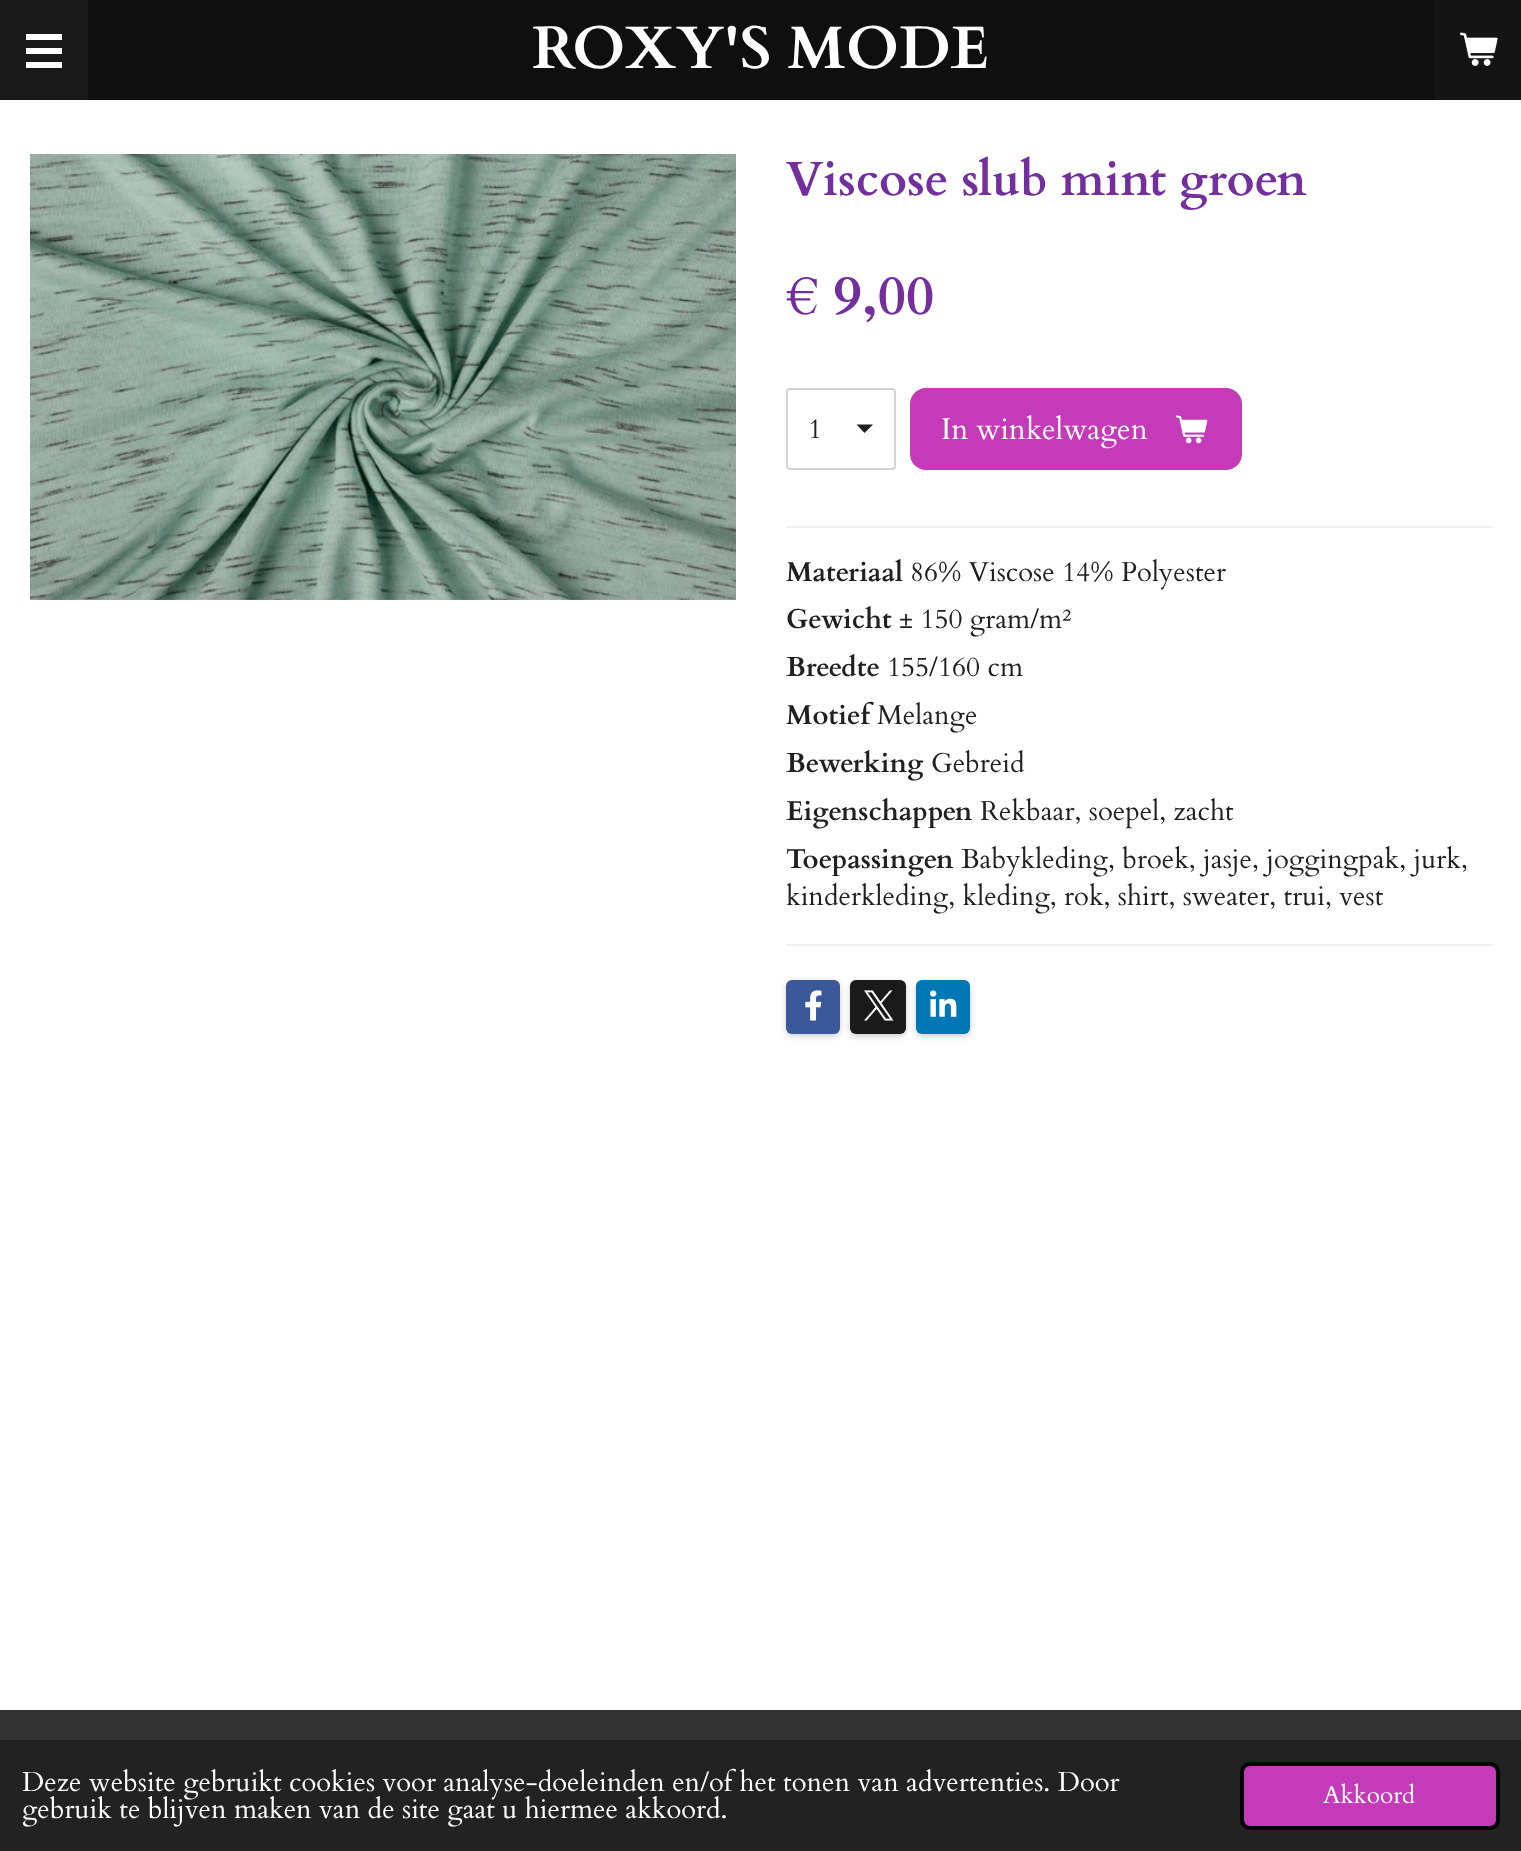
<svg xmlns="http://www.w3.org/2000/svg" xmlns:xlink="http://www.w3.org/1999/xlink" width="1521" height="1851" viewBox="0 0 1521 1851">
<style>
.cls-1{font:bold 60px Cardo;fill:#ffffff}
.cls-2{font:bold 48px Cardo;fill:#722f9d}
.cls-3{font:bold 55px Cardo;fill:#722f9d}
.cls-4{font:27.4px Cardo;fill:#202020}
.cls-5{font:30px Cardo;fill:#ffffff}
.cls-6{font:bold 27.4px Cardo;fill:#202020}
.cls-7{font:27.4px Cardo;fill:#ffffff}
.cls-8{font:24.5px Cardo;fill:#ffffff}
</style>
<rect width="100%" height="100%" fill="#0f0f0f"/>
<rect fill="#191919" x="0" y="0" width="88" height="100"/>
<rect fill="#ffffff" x="26" y="48" width="36" height="6"/>
<rect fill="#ffffff" x="26" y="34" width="36" height="6"/>
<rect fill="#ffffff" x="26" y="62" width="36" height="6"/>
<rect fill="#141414" x="1434" y="0" width="87" height="100"/>
<image xlink:href="image0.png" x="1460" y="32" width="38" height="34"/>
<rect fill="#ffffff" x="0" y="100" width="1521" height="1610"/>
<image xlink:href="image1.png" x="30" y="154" width="706" height="446"/>
<path fill="#202020" d="M864.5 433L856.5 424.5H873Z"/>
<rect fill="none" stroke="#d3d3d3" stroke-width="2" x="787" y="389" width="108" height="80" rx="3"/>
<rect fill="#c43ab9" x="910" y="388" width="332" height="82" rx="16"/>
<image xlink:href="image2.png" x="1176" y="415" width="32" height="29"/>
<rect fill="#efefef" x="786" y="526" width="706" height="2"/>
<rect fill="#efefef" x="786" y="944" width="706" height="2"/>
<rect fill="#000000" fill-opacity="0.2" filter="blur(3px)" x="786" y="982" width="54" height="54" rx="6"/>
<rect fill="#3b5998" x="786" y="980" width="54" height="54" rx="6"/>
<image xlink:href="image3.png" x="805" y="990" width="17" height="31"/>
<rect fill="#000000" fill-opacity="0.2" filter="blur(3px)" x="850" y="982" width="56" height="54" rx="6"/>
<rect fill="#1a1a1a" x="850" y="980" width="56" height="54" rx="6"/>
<image xlink:href="image4.png" x="864" y="990" width="30" height="31"/>
<rect fill="#000000" fill-opacity="0.2" filter="blur(3px)" x="916" y="982" width="54" height="54" rx="6"/>
<rect fill="#0077b5" x="916" y="980" width="54" height="54" rx="6"/>
<image xlink:href="image5.png" x="930" y="990" width="27" height="27"/>
<rect fill="#333333" x="0" y="1710" width="1521" height="30"/>
<rect fill="#222222" x="0" y="1740" width="1521" height="111"/>
<rect fill="#c43ab9" stroke="#000000" stroke-width="4" x="1242" y="1764" width="256" height="64" rx="8"/>
<text class="cls-1" x="532" y="68">ROXY'S MODE</text>
<text class="cls-2" x="786" y="195">Viscose slub mint groen</text>
<text class="cls-3" x="786" y="314">€ 9,00</text>
<text class="cls-4" x="808" y="438">1</text>
<text class="cls-5" x="941" y="439">In winkelwagen</text>
<text class="cls-6" x="786" y="581">Materiaal</text>
<text class="cls-4" x="910" y="581">86% Viscose 14% Polyester</text>
<text class="cls-6" x="786" y="628">Gewicht</text>
<text class="cls-4" x="899" y="628">± 150 gram/m²</text>
<text class="cls-6" x="786" y="676">Breedte</text>
<text class="cls-4" x="887" y="676">155/160 cm</text>
<text class="cls-6" x="786" y="724">Motief</text>
<text class="cls-4" x="877" y="724">Melange</text>
<text class="cls-6" x="786" y="772">Bewerking</text>
<text class="cls-4" x="931" y="772">Gebreid</text>
<text class="cls-6" x="786" y="820">Eigenschappen</text>
<text class="cls-4" x="980" y="820">Rekbaar, soepel, zacht</text>
<text class="cls-6" x="786" y="868">Toepassingen</text>
<text class="cls-4" x="961" y="868">Babykleding, broek, jasje, joggingpak, jurk,</text>
<text class="cls-4" x="786" y="905">kinderkleding, kleding, rok, shirt, sweater, trui, vest</text>
<text class="cls-7"><tspan x="22" y="1791">Deze website gebruikt cookies voor analyse-doeleinden en/of het tonen van advertenties. Door</tspan><tspan x="22" y="1818">gebruik te blijven maken van de site gaat u hiermee akkoord.</tspan></text>
<text class="cls-8" x="1323" y="1803">Akkoord</text>
</svg>
